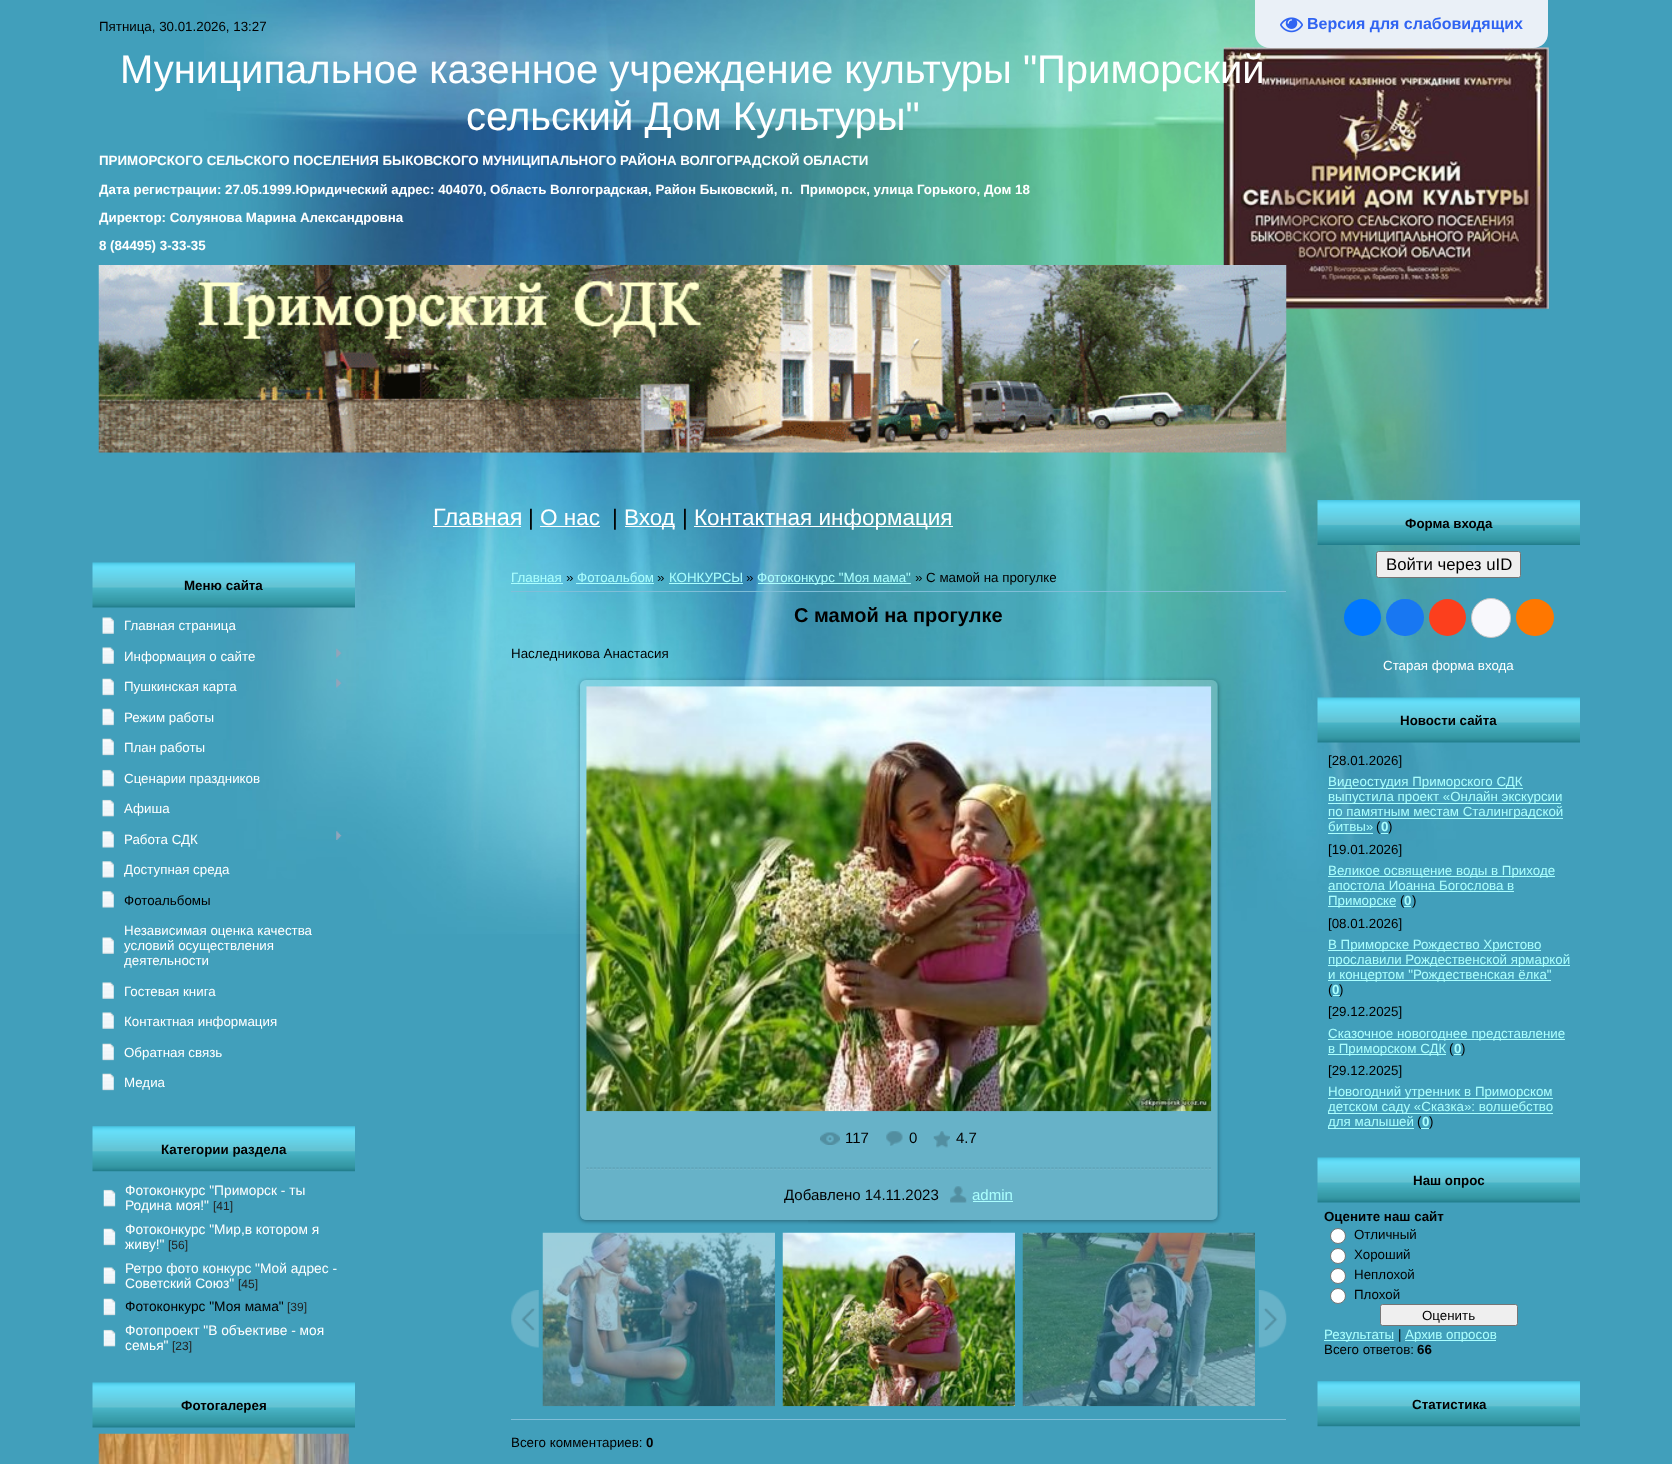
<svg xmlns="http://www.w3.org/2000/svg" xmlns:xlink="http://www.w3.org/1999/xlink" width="1672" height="1464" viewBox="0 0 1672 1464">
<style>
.cls-1{font:bold 16px Liberation Sans;fill:#3064f2}
.cls-2{font:13.33px Liberation Sans;fill:#000000}
.cls-3{font:40px Liberation Sans;fill:#ffffff}
.cls-4{font:bold 13.33px Liberation Sans;fill:#ffffff}
.cls-5{font:23.5px Liberation Sans;fill:#ffffff}
.cls-6{font:22.5px Liberation Sans;fill:#000000}
.cls-7{font:22.5px Liberation Sans;fill:#ffffff}
.cls-8{font:bold 13.33px Liberation Sans;fill:#000000}
.cls-9{font:16.75px Liberation Sans;fill:#000000}
.cls-10{font:13.33px Liberation Sans;fill:#ffffff}
.cls-11{font:13.33px Liberation Sans;fill:#abfffe}
.cls-12{font:bold 13.33px Liberation Sans;fill:#abfffe}
.cls-13{font:13.75px Liberation Sans;fill:#ffffff}
.cls-14{font:12px Liberation Sans;fill:#222222}
.cls-15{font:13.75px Liberation Sans;fill:#000000}
.cls-16{font:bold 20px Liberation Sans;fill:#000000}
.cls-17{font:15px Liberation Sans;fill:#000000}
.cls-18{font:15px Liberation Sans;fill:#abfffe}
</style>
<defs>
<clipPath id="clip1"><path d="M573 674H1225V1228H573ZM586 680H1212C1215.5 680 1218 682.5 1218 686V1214C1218 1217.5 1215.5 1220 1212 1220H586C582.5 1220 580 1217.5 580 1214V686C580 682.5 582.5 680 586 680Z" clip-rule="evenodd"/></clipPath>
</defs>
<rect width="100%" height="100%" fill="#419fbb"/>
<image xlink:href="image1.png" x="204" y="0" width="1345" height="934"/>
<path fill="#eaf0f7" d="M1255 0H1548V33C1548 41.5 1541.5 48 1533 48H1270C1261.5 48 1255 41.5 1255 33Z"/>
<image xlink:href="image0.png" x="1280" y="17" width="23" height="16"/>
<image xlink:href="image2.png" x="98" y="265" width="1189" height="188"/>
<rect fill="#ffffff" x="433" y="526" width="88" height="1"/>
<rect fill="#ffffff" x="540" y="526" width="60" height="1"/>
<rect fill="#ffffff" x="625" y="526" width="50" height="1"/>
<rect fill="#ffffff" x="694" y="526" width="259" height="1"/>
<image xlink:href="image3.png" x="1317" y="500" width="263" height="45"/>
<rect fill="#efefef" stroke="#767676" x="1376.5" y="551.5" width="144" height="26" rx="2"/>
<circle fill="#0077ff" cx="1362.5" cy="617.5" r="18.5"/>
<rect fill="#1877f2" x="1386" y="599" width="38" height="37" rx="18.5"/>
<circle fill="#fc3f1d" cx="1447.5" cy="617.5" r="18.5"/>
<circle fill="#f8f8fc" stroke="#c4c4c4" cx="1491" cy="618" r="19.5"/>
<rect fill="#ff7700" x="1516" y="599" width="38" height="37" rx="18.5"/>
<image xlink:href="image4.png" x="1317" y="697" width="263" height="46"/>
<rect fill="#abfffe" x="1328" y="788" width="195" height="1"/>
<rect fill="#abfffe" x="1328" y="803" width="233" height="1"/>
<rect fill="#abfffe" x="1328" y="818" width="235" height="1"/>
<rect fill="#abfffe" x="1328" y="833" width="45" height="1"/>
<rect fill="#abfffe" x="1381" y="833" width="8" height="1"/>
<rect fill="#abfffe" x="1328" y="876" width="227" height="1"/>
<rect fill="#abfffe" x="1328" y="891" width="186" height="1"/>
<rect fill="#abfffe" x="1328" y="906" width="68" height="1"/>
<rect fill="#abfffe" x="1404" y="906" width="7" height="1"/>
<rect fill="#abfffe" x="1328" y="950" width="213" height="1"/>
<rect fill="#abfffe" x="1328" y="965" width="242" height="1"/>
<rect fill="#abfffe" x="1328" y="980" width="223" height="1"/>
<rect fill="#abfffe" x="1333" y="995" width="7" height="1"/>
<rect fill="#abfffe" x="1328" y="1039" width="237" height="1"/>
<rect fill="#abfffe" x="1328" y="1054" width="118" height="1"/>
<rect fill="#abfffe" x="1454" y="1054" width="7" height="1"/>
<rect fill="#abfffe" x="1328" y="1098" width="225" height="1"/>
<rect fill="#abfffe" x="1328" y="1113" width="225" height="1"/>
<rect fill="#abfffe" x="1328" y="1128" width="86" height="1"/>
<image xlink:href="image5.png" x="1317" y="1157" width="263" height="46"/>
<circle fill="#ffffff" stroke="#767676" cx="1338" cy="1236" r="7.5"/>
<circle fill="#ffffff" stroke="#767676" cx="1338" cy="1256" r="7.5"/>
<circle fill="#ffffff" stroke="#767676" cx="1338" cy="1276" r="7.5"/>
<circle fill="#ffffff" stroke="#767676" cx="1338" cy="1296" r="7.5"/>
<rect fill="#efefef" stroke="#767676" x="1380.5" y="1304.5" width="137" height="21" rx="2"/>
<rect fill="#abfffe" x="1324" y="1340" width="70" height="1"/>
<rect fill="#abfffe" x="1405" y="1340" width="91" height="1"/>
<image xlink:href="image6.png" x="1317" y="1381" width="263" height="46"/>
<image xlink:href="image7.png" x="92" y="562" width="263" height="46"/>
<image xlink:href="image8.png" x="102" y="617" width="12" height="17"/>
<image xlink:href="image8.png" x="102" y="647" width="12" height="17"/>
<image xlink:href="image9.png" x="336" y="648" width="6" height="10"/>
<image xlink:href="image10.png" x="102" y="678" width="12" height="18"/>
<image xlink:href="image11.png" x="336" y="678" width="6" height="10"/>
<image xlink:href="image10.png" x="102" y="708" width="12" height="18"/>
<image xlink:href="image10.png" x="102" y="738" width="12" height="18"/>
<image xlink:href="image12.png" x="102" y="769" width="12" height="18"/>
<image xlink:href="image12.png" x="102" y="799" width="12" height="18"/>
<image xlink:href="image13.png" x="102" y="831" width="12" height="17"/>
<image xlink:href="image14.png" x="336" y="831" width="6" height="9"/>
<image xlink:href="image13.png" x="102" y="861" width="12" height="17"/>
<image xlink:href="image13.png" x="102" y="891" width="12" height="17"/>
<image xlink:href="image8.png" x="102" y="937" width="12" height="17"/>
<image xlink:href="image8.png" x="102" y="982" width="12" height="17"/>
<image xlink:href="image8.png" x="102" y="1012" width="12" height="17"/>
<image xlink:href="image10.png" x="102" y="1043" width="12" height="18"/>
<image xlink:href="image10.png" x="102" y="1073" width="12" height="18"/>
<image xlink:href="image15.png" x="92" y="1126" width="263" height="46"/>
<image xlink:href="image16.png" x="103" y="1189" width="13" height="18"/>
<image xlink:href="image17.png" x="103" y="1228" width="13" height="18"/>
<image xlink:href="image18.png" x="103" y="1267" width="13" height="17"/>
<image xlink:href="image17.png" x="103" y="1298" width="13" height="18"/>
<image xlink:href="image16.png" x="103" y="1329" width="13" height="18"/>
<image xlink:href="image19.png" x="92" y="1382" width="263" height="46"/>
<image xlink:href="image20.png" x="98" y="1433" width="251" height="31"/>
<rect fill="#abfffe" x="511" y="583" width="52" height="1"/>
<rect fill="#abfffe" x="576" y="583" width="78" height="1"/>
<rect fill="#abfffe" x="669" y="583" width="74" height="1"/>
<rect fill="#abfffe" x="758" y="583" width="153" height="1"/>
<rect fill="#81bed8" x="511" y="591" width="775" height="1"/>
<g clip-path="url(#clip1)">
<rect fill="#000000" fill-opacity="0.37" filter="blur(2px)" x="580" y="681" width="638" height="540" rx="6"/>
</g>
<image xlink:href="image21.png" x="580" y="680" width="638" height="540"/>
<image xlink:href="image22.png" x="586" y="686" width="626" height="426"/>
<image xlink:href="image23.png" x="820" y="1132" width="20" height="13"/>
<image xlink:href="image24.png" x="886" y="1131" width="17" height="15"/>
<image xlink:href="image25.png" x="933" y="1131" width="17" height="17"/>
<image xlink:href="image26.png" x="586" y="1167" width="625" height="3"/>
<image xlink:href="image27.png" x="950" y="1186" width="17" height="17"/>
<rect fill="#abfffe" x="973" y="1201" width="40" height="1"/>
<image xlink:href="image28.png" x="808" y="1220" width="183" height="4"/>
<image xlink:href="image29.png" x="511" y="1290" width="28" height="58"/>
<image xlink:href="image30.png" x="542" y="1232" width="233" height="175"/>
<image xlink:href="image31.png" x="782" y="1232" width="233" height="175"/>
<image xlink:href="image32.png" x="1022" y="1232" width="233" height="175"/>
<image xlink:href="image33.png" x="1258" y="1290" width="29" height="58"/>
<rect fill="#81bed8" x="511" y="1419" width="775" height="1"/>
<text class="cls-1" x="1307" y="29">Версия для слабовидящих</text>
<text class="cls-2" x="99" y="31">Пятница, 30.01.2026, 13:27</text>
<text class="cls-3" x="120" y="83">Муниципальное казенное учреждение культуры "Приморский</text>
<text class="cls-3" x="466" y="130">сельский Дом Культуры"</text>
<text class="cls-4" x="99" y="165">ПРИМОРСКОГО СЕЛЬСКОГО ПОСЕЛЕНИЯ БЫКОВСКОГО МУНИЦИПАЛЬНОГО РАЙОНА ВОЛГОГРАДСКОЙ ОБЛАСТИ</text>
<text class="cls-4" xml:space="preserve" x="99" y="194">Дата регистрации: 27.05.1999.Юридический адрес: 404070, Область Волгоградская, Район Быковский, п.  Приморск, улица Горького, Дом 18</text>
<text class="cls-4" x="99" y="222">Директор: Солуянова Марина Александровна</text>
<text class="cls-4" x="99" y="250">8 (84495) 3-33-35</text>
<text class="cls-5" x="433" y="525">Главная</text>
<text class="cls-6" x="528" y="525">|</text>
<text class="cls-7" x="540" y="525">О нас</text>
<text class="cls-6" x="612" y="525">|</text>
<text class="cls-7" x="624" y="525">Вход</text>
<text class="cls-6" x="682" y="525">|</text>
<text class="cls-7" x="694" y="525">Контактная информация</text>
<text class="cls-8" x="1405" y="528">Форма входа</text>
<text class="cls-9" x="1386" y="570">Войти через uID</text>
<text class="cls-10" x="1383" y="670">Старая форма входа</text>
<text class="cls-8" x="1400" y="725">Новости сайта</text>
<text class="cls-2" x="1328" y="765">[28.01.2026]</text>
<text class="cls-11"><tspan x="1328" y="786">Видеостудия Приморского СДК</tspan><tspan x="1328" y="801">выпустила проект «Онлайн экскурсии</tspan><tspan x="1328" y="816">по памятным местам Сталинградской</tspan><tspan x="1328" y="831">битвы»</tspan></text>
<text class="cls-2" x="1376" y="831">(</text>
<text class="cls-12" x="1381" y="831">0</text>
<text class="cls-2" x="1388" y="831">)</text>
<text class="cls-2" x="1328" y="854">[19.01.2026]</text>
<text class="cls-11"><tspan x="1328" y="875">Великое освящение воды в Приходе</tspan><tspan x="1328" y="890">апостола Иоанна Богослова в</tspan><tspan x="1328" y="905">Приморске</tspan></text>
<text class="cls-2" x="1400" y="905">(</text>
<text class="cls-12" x="1404" y="905">0</text>
<text class="cls-2" x="1412" y="905">)</text>
<text class="cls-2" x="1328" y="928">[08.01.2026]</text>
<text class="cls-11"><tspan x="1328" y="949">В Приморске Рождество Христово</tspan><tspan x="1328" y="964">прославили Рождественской ярмаркой</tspan><tspan x="1328" y="979">и концертом "Рождественская ёлка"</tspan></text>
<text class="cls-2" x="1328" y="994">(</text>
<text class="cls-12" x="1332" y="994">0</text>
<text class="cls-2" x="1339" y="994">)</text>
<text class="cls-2" x="1328" y="1016">[29.12.2025]</text>
<text class="cls-11"><tspan x="1328" y="1038">Сказочное новогоднее представление</tspan><tspan x="1328" y="1053">в Приморском СДК</tspan></text>
<text class="cls-2" x="1449" y="1053">(</text>
<text class="cls-12" x="1454" y="1053">0</text>
<text class="cls-2" x="1461" y="1053">)</text>
<text class="cls-2" x="1328" y="1075">[29.12.2025]</text>
<text class="cls-11"><tspan x="1328" y="1096">Новогодний утренник в Приморском</tspan><tspan x="1328" y="1111">детском саду «Сказка»: волшебство</tspan><tspan x="1328" y="1126">для малышей</tspan></text>
<text class="cls-2" x="1417" y="1126">(</text>
<rect fill="#abfffe" x="1421" y="1128" width="8" height="1"/>
<text class="cls-12" x="1422" y="1126">0</text>
<text class="cls-2" x="1429" y="1126">)</text>
<text class="cls-8" x="1413" y="1185">Наш опрос</text>
<text class="cls-8" x="1324" y="1221">Оцените наш сайт</text>
<text class="cls-2"><tspan x="1354" y="1239">Отличный</tspan><tspan x="1354" y="1259">Хороший</tspan><tspan x="1354" y="1279">Неплохой</tspan><tspan x="1354" y="1299">Плохой</tspan></text>
<text class="cls-2" x="1422" y="1320">Оценить</text>
<text class="cls-11" x="1324" y="1339">Результаты</text>
<text class="cls-2" x="1398" y="1339">|</text>
<text class="cls-11" x="1405" y="1339">Архив опросов</text>
<text class="cls-2" x="1324" y="1354">Всего ответов:</text>
<text class="cls-8" x="1417" y="1354">66</text>
<text class="cls-8" x="1412" y="1409">Статистика</text>
<text class="cls-8" x="184" y="590">Меню сайта</text>
<text class="cls-10" x="124" y="630">Главная страница</text>
<text class="cls-10" x="124" y="661">Информация о сайте</text>
<text class="cls-10" x="124" y="691">Пушкинская карта</text>
<text class="cls-10" x="124" y="722">Режим работы</text>
<text class="cls-10" x="124" y="752">План работы</text>
<text class="cls-10" x="124" y="783">Сценарии праздников</text>
<text class="cls-10" x="124" y="813">Афиша</text>
<text class="cls-10" x="124" y="844">Работа СДК</text>
<text class="cls-10" x="124" y="874">Доступная среда</text>
<text class="cls-2" x="124" y="905">Фотоальбомы</text>
<text class="cls-10"><tspan x="124" y="935">Независимая оценка качества</tspan><tspan x="124" y="950">условий осуществления</tspan><tspan x="124" y="965">деятельности</tspan></text>
<text class="cls-10" x="124" y="996">Гостевая книга</text>
<text class="cls-10" x="124" y="1026">Контактная информация</text>
<text class="cls-10" x="124" y="1057">Обратная связь</text>
<text class="cls-10" x="124" y="1087">Медиа</text>
<text class="cls-8" x="161" y="1154">Категории раздела</text>
<text class="cls-13"><tspan x="125" y="1195">Фотоконкурс "Приморск - ты</tspan><tspan x="125" y="1210">Родина моя!"</tspan></text>
<text class="cls-14" x="213" y="1210">[41]</text>
<text class="cls-13"><tspan x="125" y="1234">Фотоконкурс "Мир,в котором я</tspan><tspan x="125" y="1249">живу!"</tspan></text>
<text class="cls-14" x="168" y="1249">[56]</text>
<text class="cls-13"><tspan x="125" y="1273">Ретро фото конкурс "Мой адрес -</tspan><tspan x="125" y="1288">Советский Союз"</tspan></text>
<text class="cls-14" x="238" y="1288">[45]</text>
<text class="cls-15" x="125" y="1311">Фотоконкурс "Моя мама"</text>
<text class="cls-14" x="287" y="1311">[39]</text>
<text class="cls-13"><tspan x="125" y="1335">Фотопроект "В объективе - моя</tspan><tspan x="125" y="1350">семья"</tspan></text>
<text class="cls-14" x="172" y="1350">[23]</text>
<text class="cls-8" x="181" y="1410">Фотогалерея</text>
<text class="cls-11" x="511" y="582">Главная</text>
<text class="cls-2" x="566" y="582">»</text>
<text class="cls-11" x="577" y="582">Фотоальбом</text>
<text class="cls-2" x="657" y="582">»</text>
<text class="cls-11" x="669" y="582">КОНКУРСЫ</text>
<text class="cls-2" x="746" y="582">»</text>
<text class="cls-11" x="757" y="582">Фотоконкурс "Моя мама"</text>
<text class="cls-2" x="915" y="582">» С мамой на прогулке</text>
<text class="cls-16" x="794" y="622">С мамой на прогулке</text>
<text class="cls-2" x="511" y="658">Наследникова Анастасия</text>
<text class="cls-17" x="845" y="1143">117</text>
<text class="cls-17" x="909" y="1143">0</text>
<text class="cls-17" x="956" y="1143">4.7</text>
<text class="cls-17" x="784" y="1200">Добавлено 14.11.2023</text>
<text class="cls-18" x="972" y="1200">admin</text>
<text class="cls-2" x="511" y="1447">Всего комментариев:</text>
<text class="cls-8" x="646" y="1447">0</text>
</svg>
